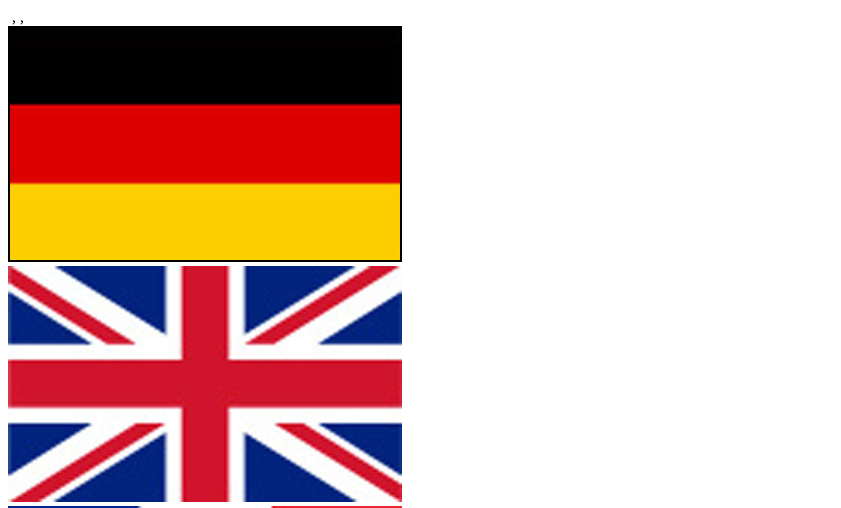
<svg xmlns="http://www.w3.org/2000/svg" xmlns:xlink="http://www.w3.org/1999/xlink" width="841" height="508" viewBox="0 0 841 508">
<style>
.cls-1{font:16px Liberation Serif;fill:#000000}
</style>
<rect width="100%" height="100%" fill="#ffffff"/>
<image xlink:href="image0.png" x="8" y="26" width="394" height="236"/>
<image xlink:href="image1.png" x="8" y="266" width="394" height="236"/>
<image xlink:href="image2.png" x="8" y="506" width="394" height="2"/>
<text class="cls-1" x="12" y="22">, ,</text>
</svg>
